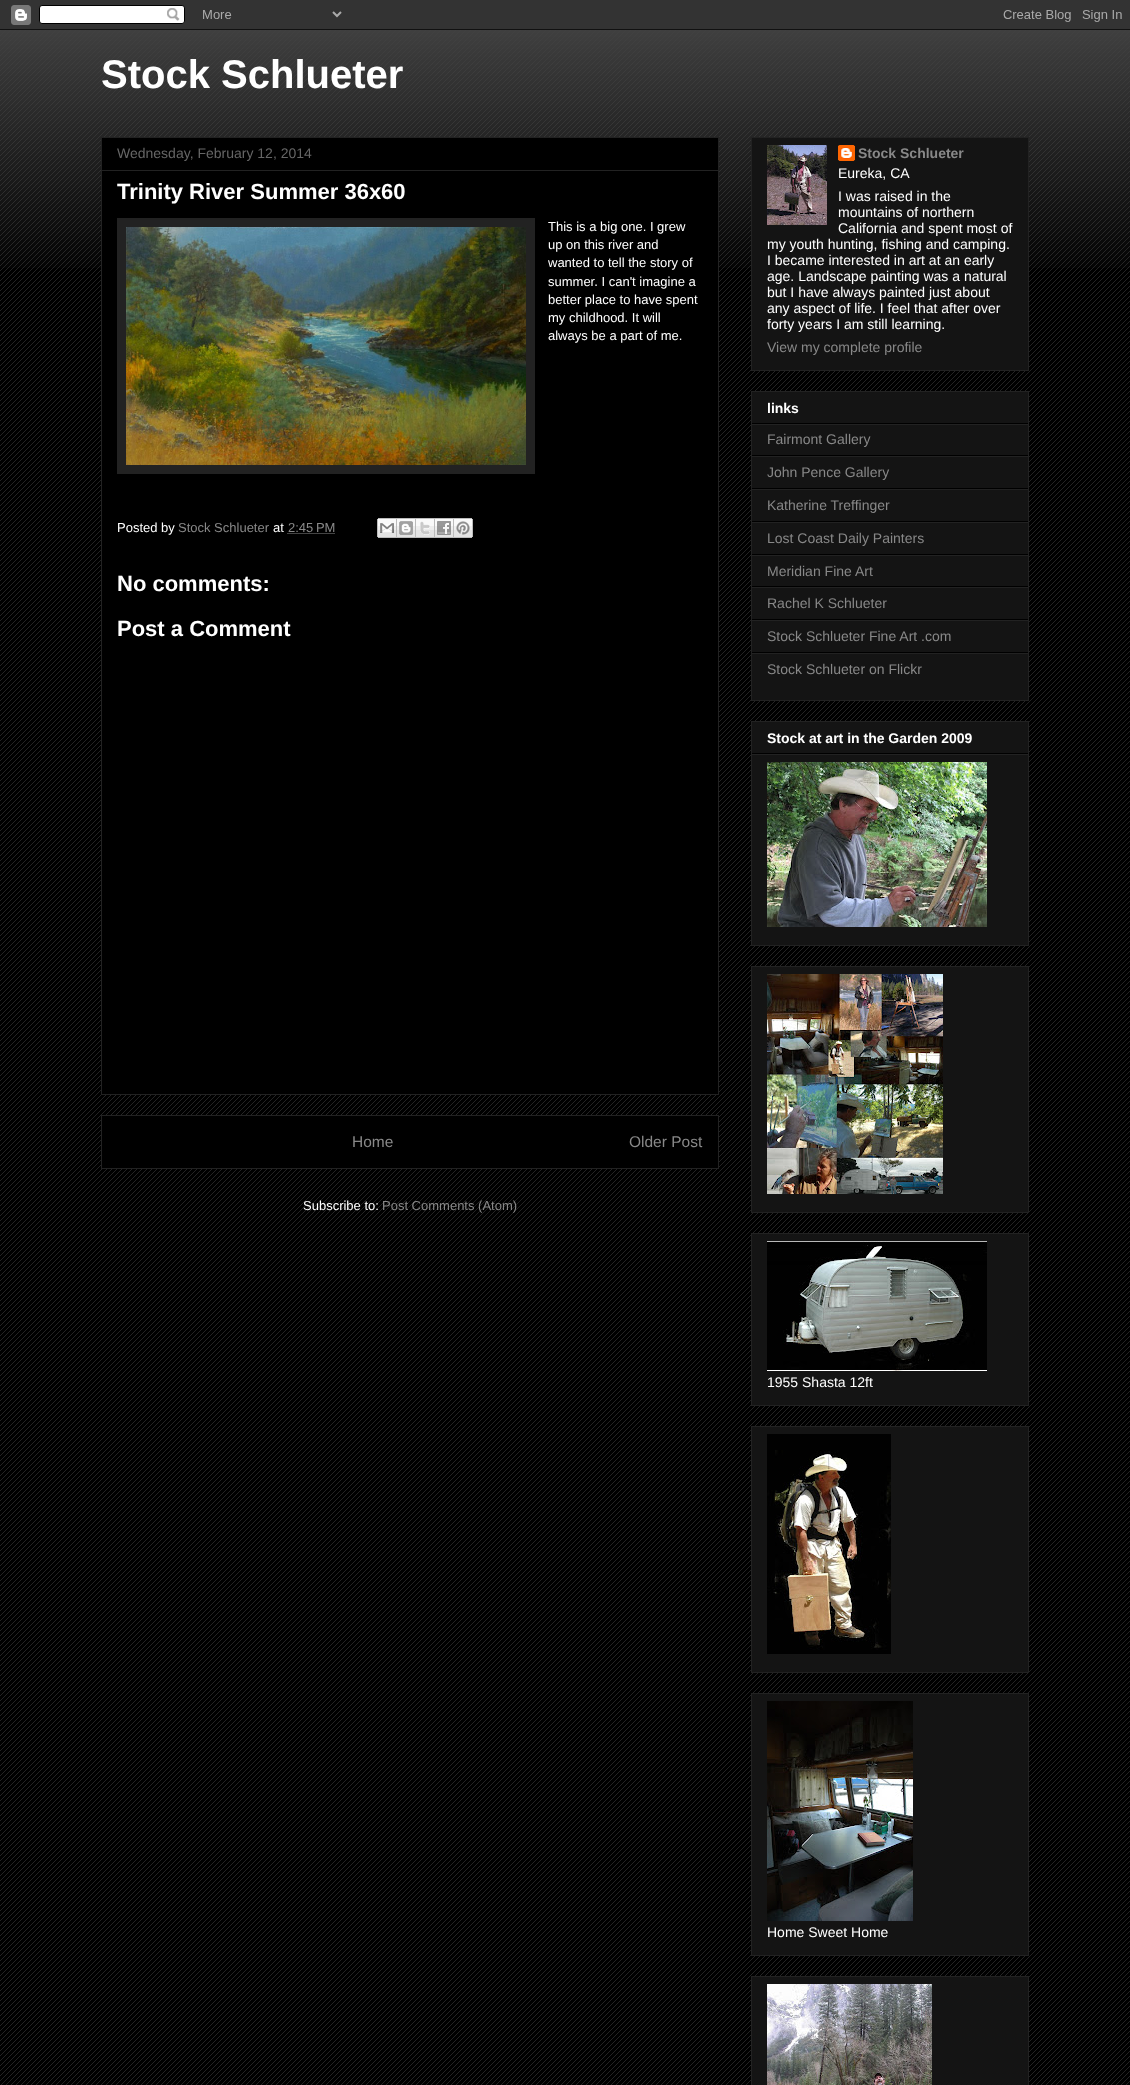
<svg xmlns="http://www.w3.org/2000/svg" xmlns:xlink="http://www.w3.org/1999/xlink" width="1130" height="2085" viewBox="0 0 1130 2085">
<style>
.cls-1{font:bold 40px Liberation Sans;fill:#ffffff}
.cls-2{font:14px Liberation Sans;fill:#666666}
.cls-3{font:bold 22px Liberation Sans;fill:#ffffff}
.cls-4{font:13px Liberation Sans;fill:#ffffff}
.cls-5{font:13px Liberation Sans;fill:#888888}
.cls-6{font:15.5px Liberation Sans;fill:#888888}
.cls-7{font:bold 14px Liberation Sans;fill:#888888}
.cls-8{font:14px Liberation Sans;fill:#ffffff}
.cls-9{font:14px Liberation Sans;fill:#888888}
.cls-10{font:bold 14px Liberation Sans;fill:#ffffff}
</style>
<rect width="100%" height="100%" fill="#000000"/>
<image xlink:href="image0.png" x="0" y="30" width="1130" height="2055"/>
<image xlink:href="image1.png" x="0" y="0" width="1130" height="30"/>
<image xlink:href="image2.png" x="0" y="30" width="1130" height="238"/>
<rect fill="#000000" stroke="#222222" x="101.5" y="137.5" width="617" height="957"/>
<rect fill="#222222" x="102" y="170" width="616" height="1"/>
<rect fill="#222222" x="117" y="218" width="418" height="256"/>
<image xlink:href="image3.png" x="126" y="227" width="400" height="238"/>
<path fill="none" stroke="#888888" stroke-dasharray="1 1" d="M287.5 533.5H335"/>
<image xlink:href="image4.png" x="377" y="518" width="20" height="20"/>
<image xlink:href="image5.png" x="397" y="518" width="19" height="20"/>
<image xlink:href="image6.png" x="416" y="518" width="19" height="20"/>
<image xlink:href="image7.png" x="435" y="518" width="19" height="20"/>
<image xlink:href="image8.png" x="454" y="518" width="19" height="20"/>
<rect fill="#000000" stroke="#222222" x="101.5" y="1115.5" width="617" height="53"/>
<rect fill="#141414" stroke="#222222" x="751.5" y="137.5" width="277" height="233"/>
<image xlink:href="image9.png" x="767" y="145" width="60" height="80"/>
<image xlink:href="image10.png" x="838" y="145" width="17" height="16"/>
<rect fill="#141414" stroke="#222222" x="751.5" y="391.5" width="277" height="309"/>
<rect fill="#000000" x="752" y="423" width="276" height="1"/>
<rect fill="#222222" x="752" y="424" width="276" height="1"/>
<rect fill="#000000" x="752" y="455" width="276" height="1"/>
<rect fill="#222222" x="752" y="456" width="276" height="1"/>
<rect fill="#000000" x="752" y="488" width="276" height="1"/>
<rect fill="#222222" x="752" y="489" width="276" height="1"/>
<rect fill="#000000" x="752" y="521" width="276" height="1"/>
<rect fill="#222222" x="752" y="522" width="276" height="1"/>
<rect fill="#000000" x="752" y="554" width="276" height="1"/>
<rect fill="#222222" x="752" y="555" width="276" height="1"/>
<rect fill="#000000" x="752" y="586" width="276" height="1"/>
<rect fill="#222222" x="752" y="587" width="276" height="1"/>
<rect fill="#000000" x="752" y="619" width="276" height="1"/>
<rect fill="#222222" x="752" y="620" width="276" height="1"/>
<rect fill="#000000" x="752" y="652" width="276" height="1"/>
<rect fill="#222222" x="752" y="653" width="276" height="1"/>
<rect fill="#141414" stroke="#222222" x="751.5" y="721.5" width="277" height="224"/>
<rect fill="#000000" x="752" y="753" width="276" height="1"/>
<rect fill="#222222" x="752" y="754" width="276" height="1"/>
<image xlink:href="image11.png" x="767" y="762" width="220" height="165"/>
<rect fill="#141414" stroke="#222222" x="751.5" y="966.5" width="277" height="246"/>
<image xlink:href="image12.png" x="767" y="974" width="176" height="220"/>
<rect fill="#141414" stroke="#222222" x="751.5" y="1233.5" width="277" height="172"/>
<image xlink:href="image13.png" x="767" y="1241" width="220" height="130"/>
<rect fill="#141414" stroke="#222222" x="751.5" y="1426.5" width="277" height="246"/>
<image xlink:href="image14.png" x="767" y="1434" width="124" height="220"/>
<rect fill="#141414" stroke="#222222" x="751.5" y="1693.5" width="277" height="262"/>
<image xlink:href="image15.png" x="767" y="1701" width="146" height="220"/>
<rect fill="#141414" stroke="#222222" x="751.5" y="1976.5" width="277" height="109"/>
<image xlink:href="image16.png" x="767" y="1984" width="165" height="101"/>
<text class="cls-1" x="101" y="88">Stock Schlueter</text>
<text class="cls-2" x="117" y="158">Wednesday, February 12, 2014</text>
<text class="cls-3" x="117" y="199">Trinity River Summer 36x60</text>
<text class="cls-4"><tspan x="548" y="231">This is a big one. I grew</tspan><tspan x="548" y="249">up on this river and</tspan><tspan x="548" y="267">wanted to tell the story of</tspan><tspan x="548" y="286">summer. I can't imagine a</tspan><tspan x="548" y="304">better place to have spent</tspan><tspan x="548" y="322">my childhood. It will</tspan><tspan x="548" y="340">always be a part of me.</tspan></text>
<text class="cls-4" x="117" y="532">Posted by</text>
<text class="cls-5" x="178" y="532">Stock Schlueter</text>
<text class="cls-4" x="273" y="532">at</text>
<text class="cls-5" x="288" y="532">2:45 PM</text>
<text class="cls-3" x="117" y="591">No comments:</text>
<text class="cls-3" x="117" y="636">Post a Comment</text>
<text class="cls-6" x="352" y="1147">Home</text>
<text class="cls-6" x="629" y="1147">Older Post</text>
<text class="cls-4" x="303" y="1210">Subscribe to:</text>
<text class="cls-5" x="382" y="1210">Post Comments (Atom)</text>
<text class="cls-7" x="858" y="158">Stock Schlueter</text>
<text class="cls-8"><tspan x="838" y="178">Eureka, CA</tspan><tspan x="838" y="201">I was raised in the</tspan><tspan x="838" y="217">mountains of northern</tspan><tspan x="838" y="233">California and spent most of</tspan></text>
<text class="cls-8"><tspan x="767" y="249">my youth hunting, fishing and camping.</tspan><tspan x="767" y="265">I became interested in art at an early</tspan><tspan x="767" y="281">age. Landscape painting was a natural</tspan><tspan x="767" y="297">but I have always painted just about</tspan><tspan x="767" y="313">any aspect of life. I feel that after over</tspan><tspan x="767" y="329">forty years I am still learning.</tspan></text>
<text class="cls-9" x="767" y="352">View my complete profile</text>
<text class="cls-10" x="767" y="413">links</text>
<text class="cls-9" x="767" y="444">Fairmont Gallery</text>
<text class="cls-9" x="767" y="477">John Pence Gallery</text>
<text class="cls-9" x="767" y="510">Katherine Treffinger</text>
<text class="cls-9" x="767" y="543">Lost Coast Daily Painters</text>
<text class="cls-9" x="767" y="576">Meridian Fine Art</text>
<text class="cls-9" x="767" y="608">Rachel K Schlueter</text>
<text class="cls-9" x="767" y="641">Stock Schlueter Fine Art .com</text>
<text class="cls-9" x="767" y="674">Stock Schlueter on Flickr</text>
<text class="cls-10" x="767" y="743">Stock at art in the Garden 2009</text>
<text class="cls-8" x="767" y="1387">1955 Shasta 12ft</text>
<text class="cls-8" x="767" y="1937">Home Sweet Home</text>
</svg>
